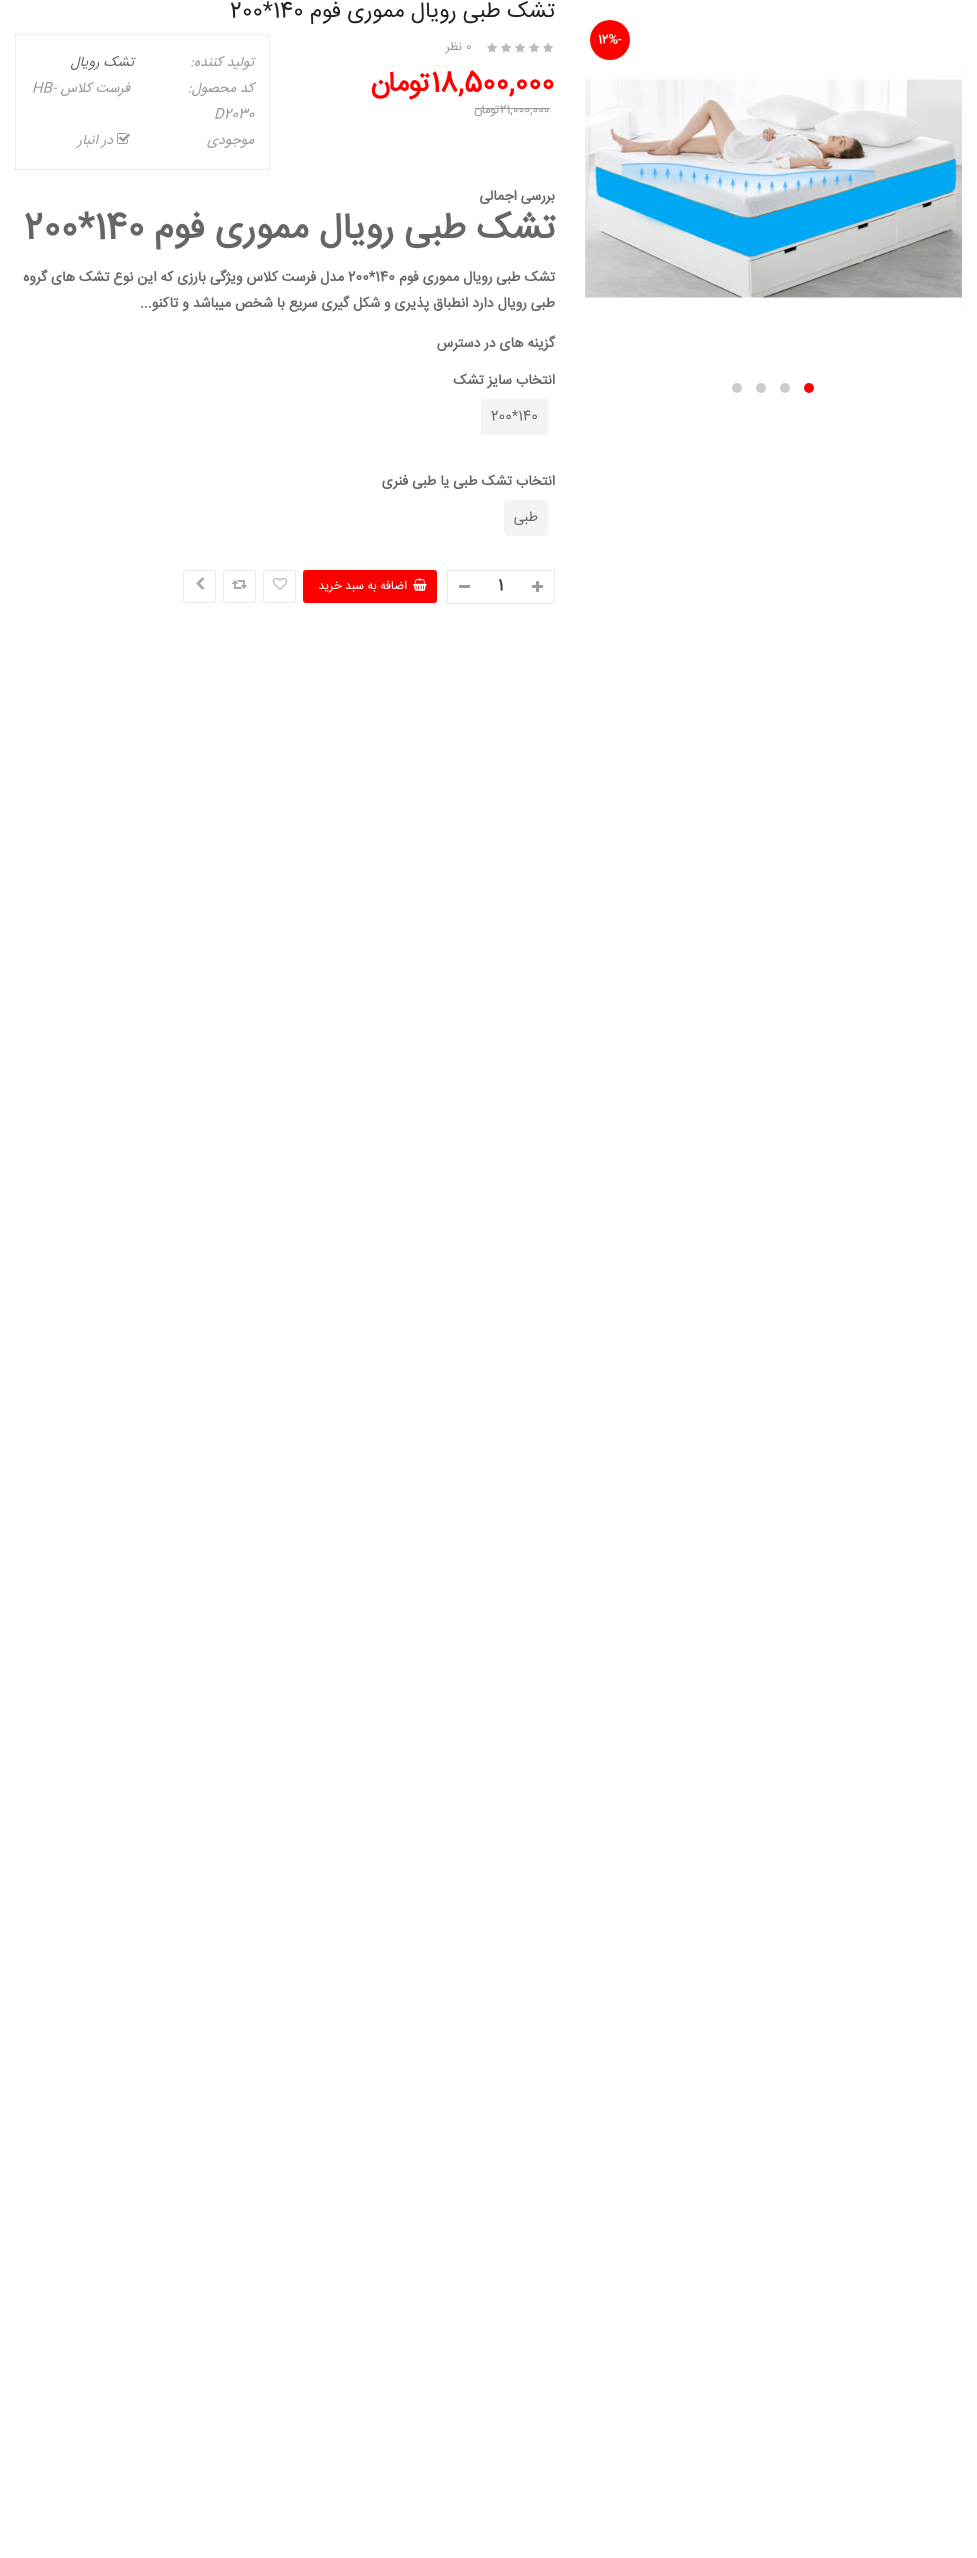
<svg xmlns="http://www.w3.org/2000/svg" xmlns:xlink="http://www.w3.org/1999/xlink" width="977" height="2558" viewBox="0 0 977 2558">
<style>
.cls-1{font:bold 12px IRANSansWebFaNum;fill:#ffffff}
.cls-2{font:22px IRANSansWebFaNum;direction:rtl;fill:#222222}
.cls-3{font:22px IRANSansWebFaNum;fill:#222222}
.cls-4{font:12px IRANSansWebFaNum;fill:#999999}
.cls-5{font:12px IRANSansWebFaNum;direction:rtl;fill:#999999}
.cls-6{font:bold 28px IRANSansWebFaNum;fill:#ff0000}
.cls-7{font:bold 28px IRANSansWebFaNum;direction:rtl;fill:#ff0000}
.cls-8{font:italic 14px IRANSansWebFaNum;direction:rtl;fill:#999999}
.cls-9{font:italic 14px IRANSansWebFaNum;direction:rtl;fill:#666666}
.cls-10{font:italic 14px IRANSansWebFaNum;fill:#999999}
.cls-11{font:bold 14px IRANSansWebFaNum;direction:rtl;fill:#666666}
.cls-12{font:bold 36px IRANSansWebFaNum;direction:rtl;fill:#666666}
.cls-13{font:bold 36px IRANSansWebFaNum;fill:#666666}
.cls-14{font:bold 14px IRANSansWebFaNum;fill:#666666}
.cls-15{font:14px IRANSansWebFaNum;fill:#666666}
.cls-16{font:14px IRANSansWebFaNum;direction:rtl;fill:#666666}
.cls-17{font:bold 16px IRANSansWebFaNum;fill:#3d3d3d}
.cls-18{font:12px IRANSansWebFaNum;direction:rtl;fill:#ffffff}
</style>
<rect width="100%" height="100%" fill="#ffffff"/>
<circle fill="#ff0000" cx="610" cy="40" r="20"/>
<image xlink:href="image1.png" x="585" y="79" width="377" height="219"/>
<image xlink:href="image0.png" x="961" y="64" width="1" height="250"/>
<circle fill="#ff0000" cx="809" cy="388" r="5"/>
<circle fill="#cccccc" cx="785" cy="388" r="5"/>
<circle fill="#cccccc" cx="761" cy="388" r="5"/>
<circle fill="#cccccc" cx="737" cy="388" r="5"/>
<image xlink:href="image2.png" x="543" y="43" width="11" height="10"/>
<image xlink:href="image2.png" x="529" y="43" width="11" height="10"/>
<image xlink:href="image2.png" x="515" y="43" width="11" height="10"/>
<image xlink:href="image2.png" x="501" y="43" width="11" height="10"/>
<image xlink:href="image2.png" x="487" y="43" width="11" height="10"/>
<rect fill="#999999" x="475" y="108" width="25" height="1"/>
<rect fill="#999999" x="500" y="108" width="50" height="1"/>
<path fill="none" stroke="#dddddd" stroke-dasharray="1 1" d="M15 34.5H270"/>
<path fill="none" stroke="#dddddd" stroke-dasharray="1 1" d="M269.5 34V170"/>
<path fill="none" stroke="#dddddd" stroke-dasharray="1 1" d="M15 169.5H270"/>
<path fill="none" stroke="#dddddd" stroke-dasharray="1 1" d="M15.5 34V170"/>
<image xlink:href="image3.png" x="117" y="133" width="13" height="11"/>
<rect fill="#f3f4f6" x="481" y="399" width="67" height="36" rx="4"/>
<rect fill="#f3f4f6" x="504" y="500" width="44" height="36" rx="4"/>
<rect fill="none" stroke="#eaeaea" x="447.5" y="570.5" width="107" height="33"/>
<image xlink:href="image4.png" x="532" y="581" width="11" height="11"/>
<rect fill="#999999" x="459" y="585" width="11" height="3"/>
<rect fill="#ff0000" x="303" y="570" width="134" height="33" rx="3"/>
<image xlink:href="image5.png" x="413" y="578" width="14" height="13"/>
<rect fill="none" stroke="#eaeaea" x="263.5" y="570.5" width="32" height="32" rx="2.5"/>
<image xlink:href="image6.png" x="273" y="578" width="14" height="12"/>
<rect fill="none" stroke="#eaeaea" x="223.5" y="570.5" width="32" height="32" rx="2.5"/>
<image xlink:href="image7.png" x="232" y="580" width="15" height="9"/>
<rect fill="none" stroke="#eaeaea" x="183.5" y="570.5" width="32" height="32" rx="2.5"/>
<image xlink:href="image8.png" x="196" y="577" width="9" height="13"/>
<text class="cls-1" x="598" y="43">12%-</text>
<text class="cls-2" x="555" y="17">تشک طبی رویال مموری فوم</text>
<text class="cls-3" x="230" y="17">200*140</text>
<text class="cls-4" x="466" y="50">0</text>
<text class="cls-5" x="462" y="50">نظر</text>
<text class="cls-6" x="431" y="91">18,500,000</text>
<text class="cls-7" x="431" y="91">تومان</text>
<text class="cls-4" x="500" y="113">21,000,000</text>
<text class="cls-5" x="500" y="113">تومان</text>
<text class="cls-8" x="254" y="66">تولید کننده:</text>
<text class="cls-9" x="134" y="66">تشک رویال</text>
<text class="cls-8" x="254" y="92">کد محصول:</text>
<text class="cls-8" x="130" y="92">فرست کلاس</text>
<text class="cls-10" x="32" y="92">HB-</text>
<text class="cls-10" x="214" y="118">D2030</text>
<text class="cls-8" x="254" y="144">موجودی</text>
<text class="cls-8" x="113" y="144">در انبار</text>
<text class="cls-11" x="555" y="200">بررسی اجمالی</text>
<text class="cls-12" x="555" y="238">تشک طبی رویال مموری فوم</text>
<text class="cls-13" x="24" y="238">200*140</text>
<text class="cls-11" x="555" y="281">تشک طبی رویال مموری فوم</text>
<text class="cls-14" x="348" y="281">200*140</text>
<text class="cls-11" x="344" y="281">مدل فرست کلاس ویژگی بارزی که این نوع تشک های گروه</text>
<text class="cls-11" x="555" y="307">طبی رویال دارد انطباق پذیری و شکل گیری سریع با شخص میباشد و تاکنو...</text>
<text class="cls-11" x="555" y="347">گزینه های در دسترس</text>
<text class="cls-11" x="555" y="384">انتخاب سایز تشک</text>
<text class="cls-15" x="491" y="420">200*140</text>
<text class="cls-11" x="555" y="485">انتخاب تشک طبی یا طبی فنری</text>
<text class="cls-16" x="538" y="521">طبی</text>
<text class="cls-17" x="498" y="590">1</text>
<text class="cls-18" x="407" y="589">اضافه به سبد خرید</text>
</svg>
